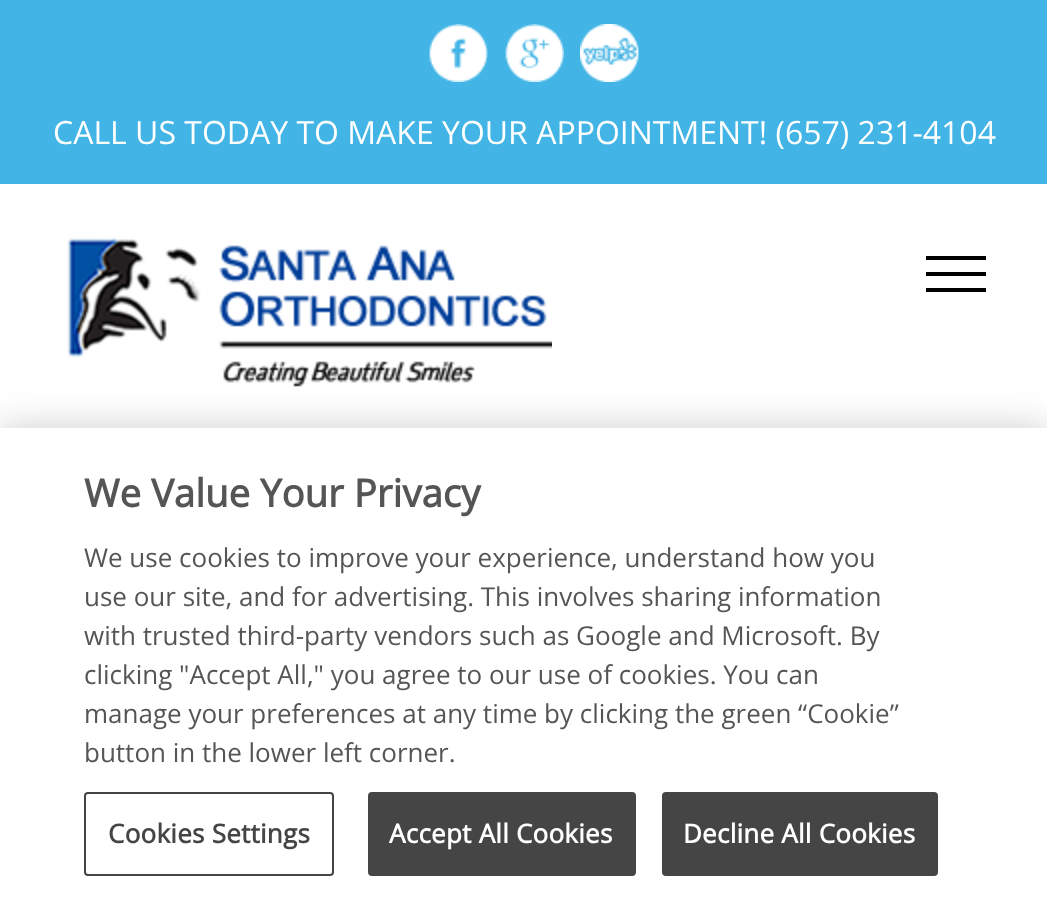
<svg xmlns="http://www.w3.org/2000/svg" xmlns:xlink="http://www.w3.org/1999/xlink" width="1047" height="918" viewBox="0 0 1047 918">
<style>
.cls-1{font:32px Open Sans;fill:#ffffff}
.cls-2{font:bold 38.4px Open Sans;fill:#555555}
.cls-3{font:26px Open Sans;fill:#555555}
.cls-4{font:bold 26px Open Sans;letter-spacing:0.25px;fill:#454545}
.cls-5{font:bold 26px Open Sans;letter-spacing:0.25px;fill:#ffffff}
</style>
<rect width="100%" height="100%" fill="#ffffff"/>
<rect fill="#42b4e5" x="0" y="0" width="1047" height="184"/>
<image xlink:href="image0.png" x="429" y="24" width="59" height="58"/>
<image xlink:href="image1.png" x="505" y="24" width="59" height="58"/>
<image xlink:href="image2.png" x="580" y="24" width="59" height="58"/>
<image xlink:href="image3.png" x="67" y="237" width="485" height="150"/>
<rect fill="#000000" x="926" y="256" width="60" height="4"/>
<rect fill="#000000" x="926" y="272" width="60" height="4"/>
<rect fill="#000000" x="926" y="288" width="60" height="4"/>
<rect fill="#000000" fill-opacity="0.2" filter="blur(18px)" x="0" y="428" width="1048" height="490"/>
<rect fill="#ffffff" x="0" y="428" width="1047" height="490"/>
<rect fill="none" stroke="#454545" stroke-width="2" x="85" y="793" width="248" height="82" rx="3"/>
<rect fill="#454545" stroke="#454545" stroke-width="2" x="369" y="793" width="266" height="82" rx="3"/>
<rect fill="#454545" stroke="#454545" stroke-width="2" x="663" y="793" width="274" height="82" rx="3"/>
<text class="cls-1" x="53" y="144">CALL US TODAY TO MAKE YOUR APPOINTMENT! (657) 231-4104</text>
<text class="cls-2" x="84" y="507">We Value Your Privacy</text>
<text class="cls-3"><tspan x="84" y="567">We use cookies to improve your experience, understand how you</tspan><tspan x="84" y="606">use our site, and for advertising. This involves sharing information</tspan><tspan x="84" y="645">with trusted third-party vendors such as Google and Microsoft. By</tspan><tspan x="84" y="684">clicking "Accept All," you agree to our use of cookies. You can</tspan><tspan x="84" y="723">manage your preferences at any time by clicking the green “Cookie”</tspan><tspan x="84" y="762">button in the lower left corner.</tspan></text>
<text class="cls-4" x="108" y="843">Cookies Settings</text>
<text class="cls-5" x="389" y="843">Accept All Cookies</text>
<text class="cls-5" x="683" y="843">Decline All Cookies</text>
</svg>
